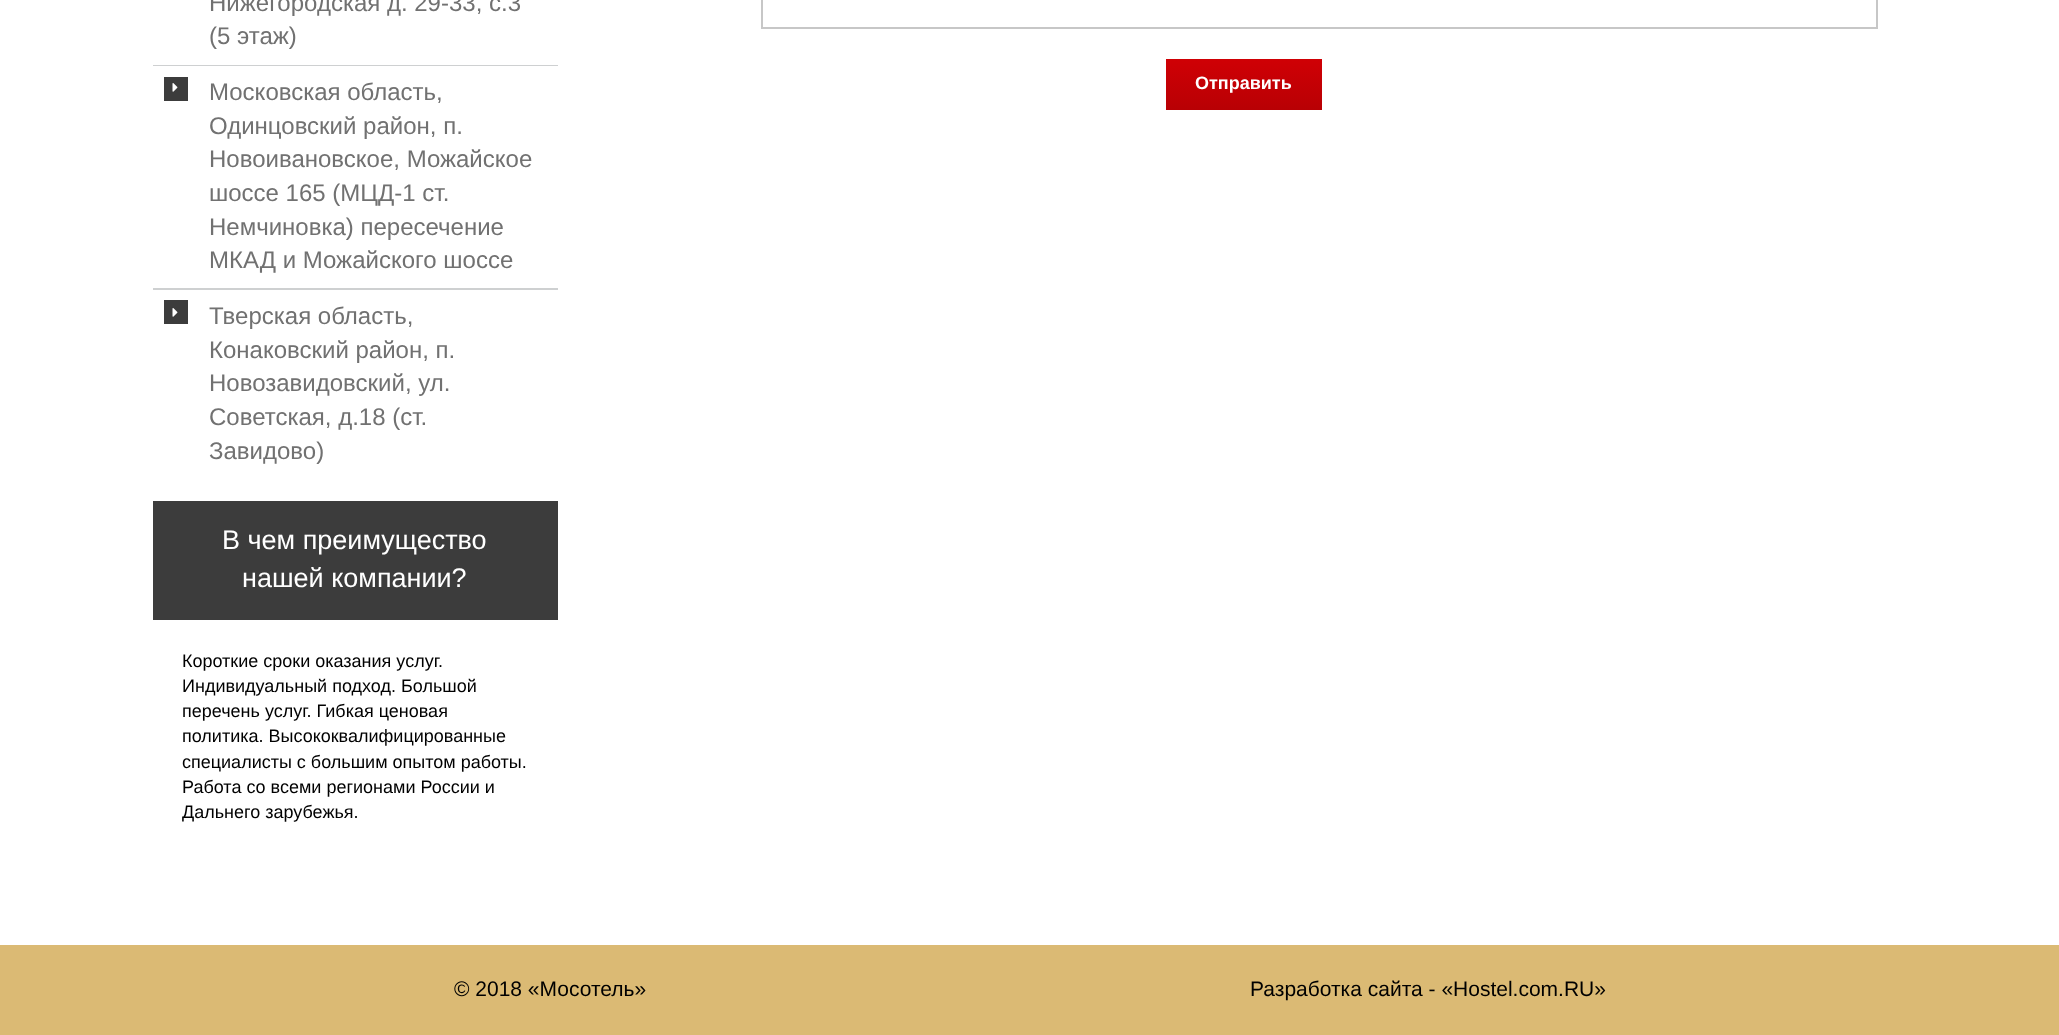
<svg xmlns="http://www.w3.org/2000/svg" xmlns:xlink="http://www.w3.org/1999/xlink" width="2059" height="1035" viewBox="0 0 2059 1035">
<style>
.cls-1{font:24px Liberation Sans;fill:#717171}
.cls-2{font:27px Liberation Sans;fill:#ffffff}
.cls-3{font:18px Liberation Sans;fill:#000000}
.cls-4{font:bold 18px Liberation Sans;fill:#ffffff}
.cls-5{font:21px Liberation Sans;fill:#000000}
</style>
<defs>
<linearGradient id="g1" gradientUnits="userSpaceOnUse" x1="1244" y1="58" x2="1244" y2="110"><stop offset="0" stop-color="#d00005"/><stop offset="1" stop-color="#b80004"/></linearGradient>
</defs>
<rect width="100%" height="100%" fill="#ffffff"/>
<rect fill="#ced0d1" x="153" y="65" width="405" height="1"/>
<rect fill="#3c3c3c" x="164" y="77" width="24" height="24"/>
<image xlink:href="image0.png" x="172" y="83" width="6" height="9"/>
<rect fill="#ced0d1" x="153" y="288" width="405" height="2"/>
<rect fill="#3c3c3c" x="164" y="300" width="24" height="24"/>
<image xlink:href="image0.png" x="172" y="308" width="6" height="9"/>
<rect fill="#3c3c3c" x="153" y="501" width="405" height="119"/>
<rect fill="none" stroke="#c7c7c7" stroke-width="2" x="762" y="-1" width="1115" height="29"/>
<rect fill="url(#g1)" x="1166" y="59" width="156" height="51"/>
<rect fill="#dbba74" x="0" y="945" width="2059" height="90"/>
<text class="cls-1"><tspan x="209" y="11">Нижегородская д. 29-33, с.3</tspan><tspan x="209" y="44">(5 этаж)</tspan></text>
<text class="cls-1"><tspan x="209" y="100">Московская область,</tspan><tspan x="209" y="134">Одинцовский район, п.</tspan><tspan x="209" y="167">Новоивановское, Можайское</tspan><tspan x="209" y="201">шоссе 165 (МЦД-1 ст.</tspan><tspan x="209" y="235">Немчиновка) пересечение</tspan><tspan x="209" y="268">МКАД и Можайского шоссе</tspan></text>
<text class="cls-1"><tspan x="209" y="324">Тверская область,</tspan><tspan x="209" y="358">Конаковский район, п.</tspan><tspan x="209" y="391">Новозавидовский, ул.</tspan><tspan x="209" y="425">Советская, д.18 (ст.</tspan><tspan x="209" y="459">Завидово)</tspan></text>
<text class="cls-2" x="222" y="549">В чем преимущество</text>
<text class="cls-2" x="242" y="587">нашей компании?</text>
<text class="cls-3"><tspan x="182" y="667">Короткие сроки оказания услуг.</tspan><tspan x="182" y="692">Индивидуальный подход. Большой</tspan><tspan x="182" y="717">перечень услуг. Гибкая ценовая</tspan><tspan x="182" y="742">политика. Высококвалифицированные</tspan><tspan x="182" y="768">специалисты с большим опытом работы.</tspan><tspan x="182" y="793">Работа со всеми регионами России и</tspan><tspan x="182" y="818">Дальнего зарубежья.</tspan></text>
<text class="cls-4" x="1195" y="89">Отправить</text>
<text class="cls-5" x="454" y="996">© 2018 «Мосотель»</text>
<text class="cls-5" x="1250" y="996">Разработка сайта - «Hostel.com.RU»</text>
</svg>
